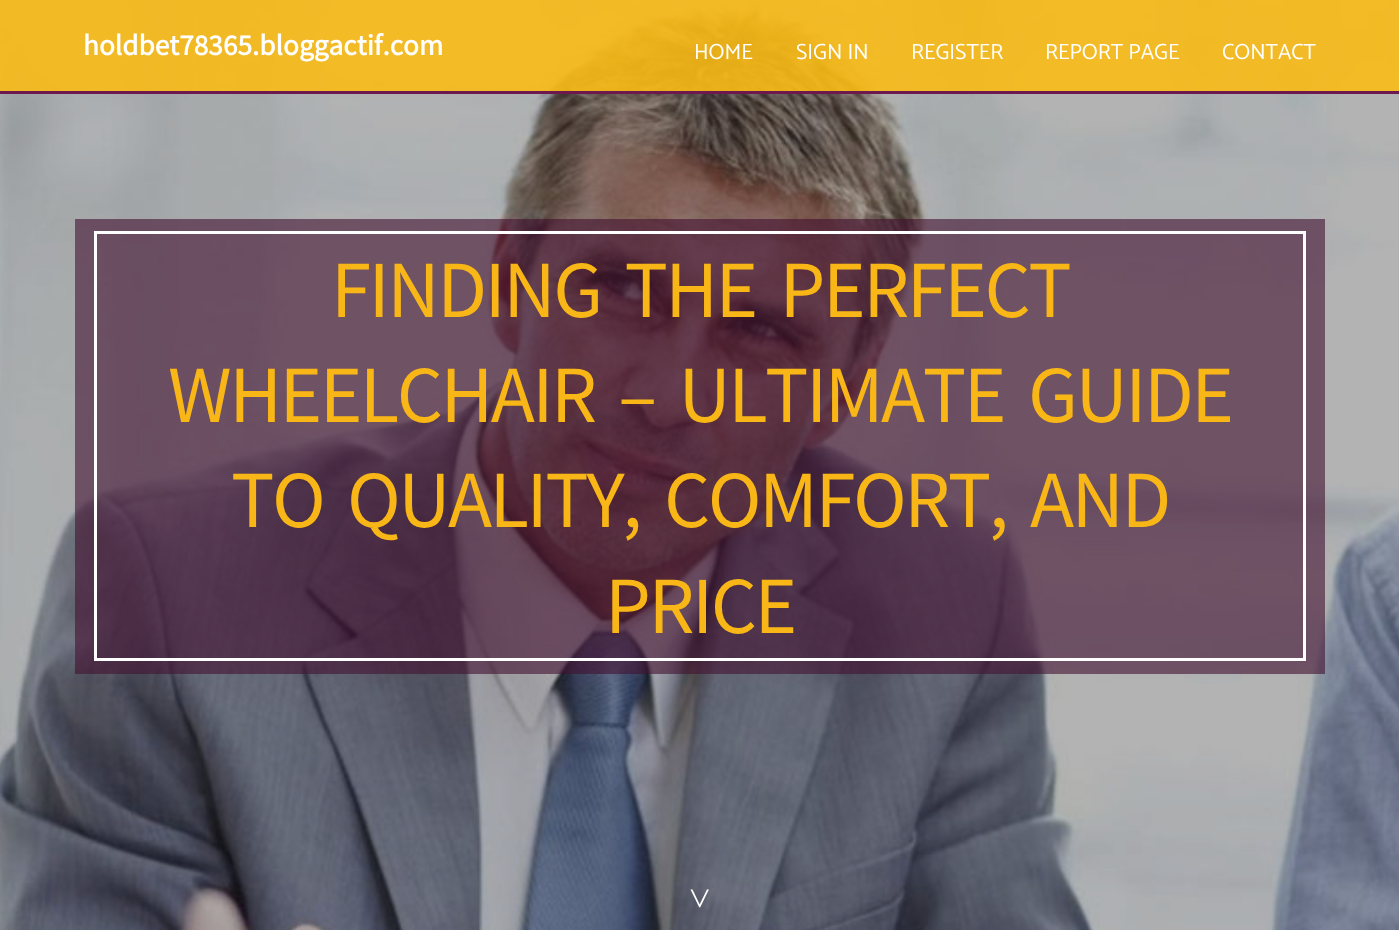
<svg xmlns="http://www.w3.org/2000/svg" xmlns:xlink="http://www.w3.org/1999/xlink" width="1399" height="930" viewBox="0 0 1399 930">
<style>*{font-kerning:none!important;font-variant-ligatures:none!important}</style>
<style>
.cls-1{font:bold 26.25px Noto Sans SC;fill:#ffffff}
.cls-2{font:100 22px Catamaran;fill:#ffffff}
.cls-3{font:100 72.5px Noto Sans SC;letter-spacing:-2.5px;fill:#f9b617}
.cls-4{font:38px Liberation Serif;fill:#ffffff}
</style>
<rect width="100%" height="100%" fill="#ffffff"/>
<image xlink:href="image0.png" x="0" y="0" width="1399" height="930"/>
<rect fill="#fabb16" fill-opacity="0.9" x="0" y="0" width="1399" height="91"/>
<rect fill="#6c194f" x="0" y="91" width="1399" height="3"/>
<rect fill="#431031" fill-opacity="0.6" x="75" y="219" width="1250" height="455"/>
<rect fill="none" stroke="#ffffff" stroke-width="3" x="95.5" y="232.5" width="1209" height="427"/>
<text class="cls-1" x="83" y="55">holdbet78365.bloggactif.com</text>
<text class="cls-2" x="694" y="59">HOME</text>
<text class="cls-2" x="796" y="59">SIGN IN</text>
<text class="cls-2" x="911" y="59">REGISTER</text>
<text class="cls-2" x="1045" y="59">REPORT PAGE</text>
<text class="cls-2" x="1222" y="59">CONTACT</text>
<text class="cls-3" x="331" y="317" word-spacing="10">FINDING THE PERFECT</text>
<text class="cls-3" x="168" y="422" word-spacing="10">WHEELCHAIR – ULTIMATE</text>
<text class="cls-3" x="1028" y="422" word-spacing="10">GUIDE</text>
<text class="cls-3" x="231" y="527" word-spacing="10">TO QUALITY,</text>
<text class="cls-3" x="664" y="527" word-spacing="10">COMFORT,</text>
<text class="cls-3" x="1030" y="527" word-spacing="10">AND</text>
<text class="cls-3" x="605" y="633">PRICE</text>
<text class="cls-4" x="689" y="911">˅</text>
</svg>
